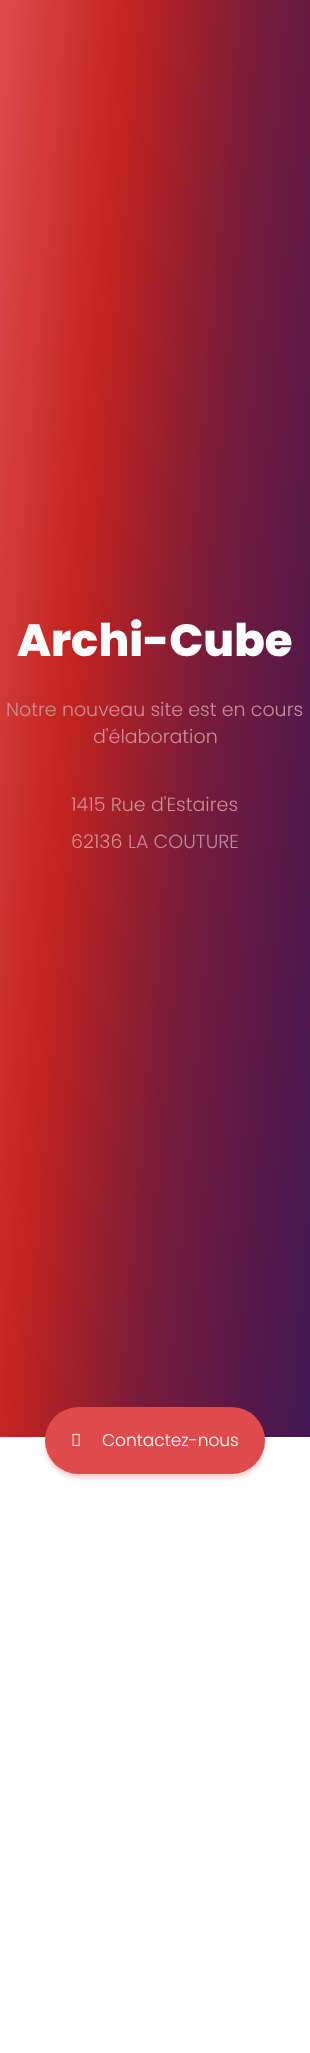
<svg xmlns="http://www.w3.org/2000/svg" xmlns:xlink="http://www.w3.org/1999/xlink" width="310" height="2053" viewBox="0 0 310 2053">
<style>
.cls-1{font:800 45px Poppins;fill:#ffffff}
.cls-2{font:300 19px Poppins;fill:#ca9099}
.cls-3{font:300 19px Poppins;fill:#d69093}
.cls-4{font:300 19px Poppins;fill:#bd8d9c}
.cls-5{font:300 17px Poppins;fill:#ffffff}
</style>
<defs>
<linearGradient id="g1" gradientUnits="userSpaceOnUse" x1="-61" y1="700" x2="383" y2="738"><stop offset="0" stop-color="#df4b4c"/><stop offset="0.3" stop-color="#c1231f"/><stop offset="0.59" stop-color="#771b3a"/><stop offset="1" stop-color="#3c1755"/></linearGradient>
</defs>
<rect width="100%" height="100%" fill="#ffffff"/>
<rect fill="url(#g1)" x="0" y="0" width="310" height="1437"/>
<rect fill="#df4b4c" fill-opacity="0.25" filter="blur(2px)" x="45" y="1411" width="220" height="67" rx="33.5"/>
<rect fill="#df4b4c" x="45" y="1407" width="220" height="67" rx="33.5"/>
<image xlink:href="image0.png" x="72" y="1433" width="8" height="13"/>
<text class="cls-1" x="17" y="656">Archi-Cube</text>
<text class="cls-2" x="6" y="716">Notre nouveau site est en cours</text>
<text class="cls-2" x="93" y="743">d'élaboration</text>
<text class="cls-2" x="71" y="811">1415 Rue d'Estaires</text>
<text class="cls-3" x="71" y="848">62136</text>
<text class="cls-4" x="128" y="848">LA COUTURE</text>
<text class="cls-5" x="102" y="1446">Contactez-nous</text>
</svg>
